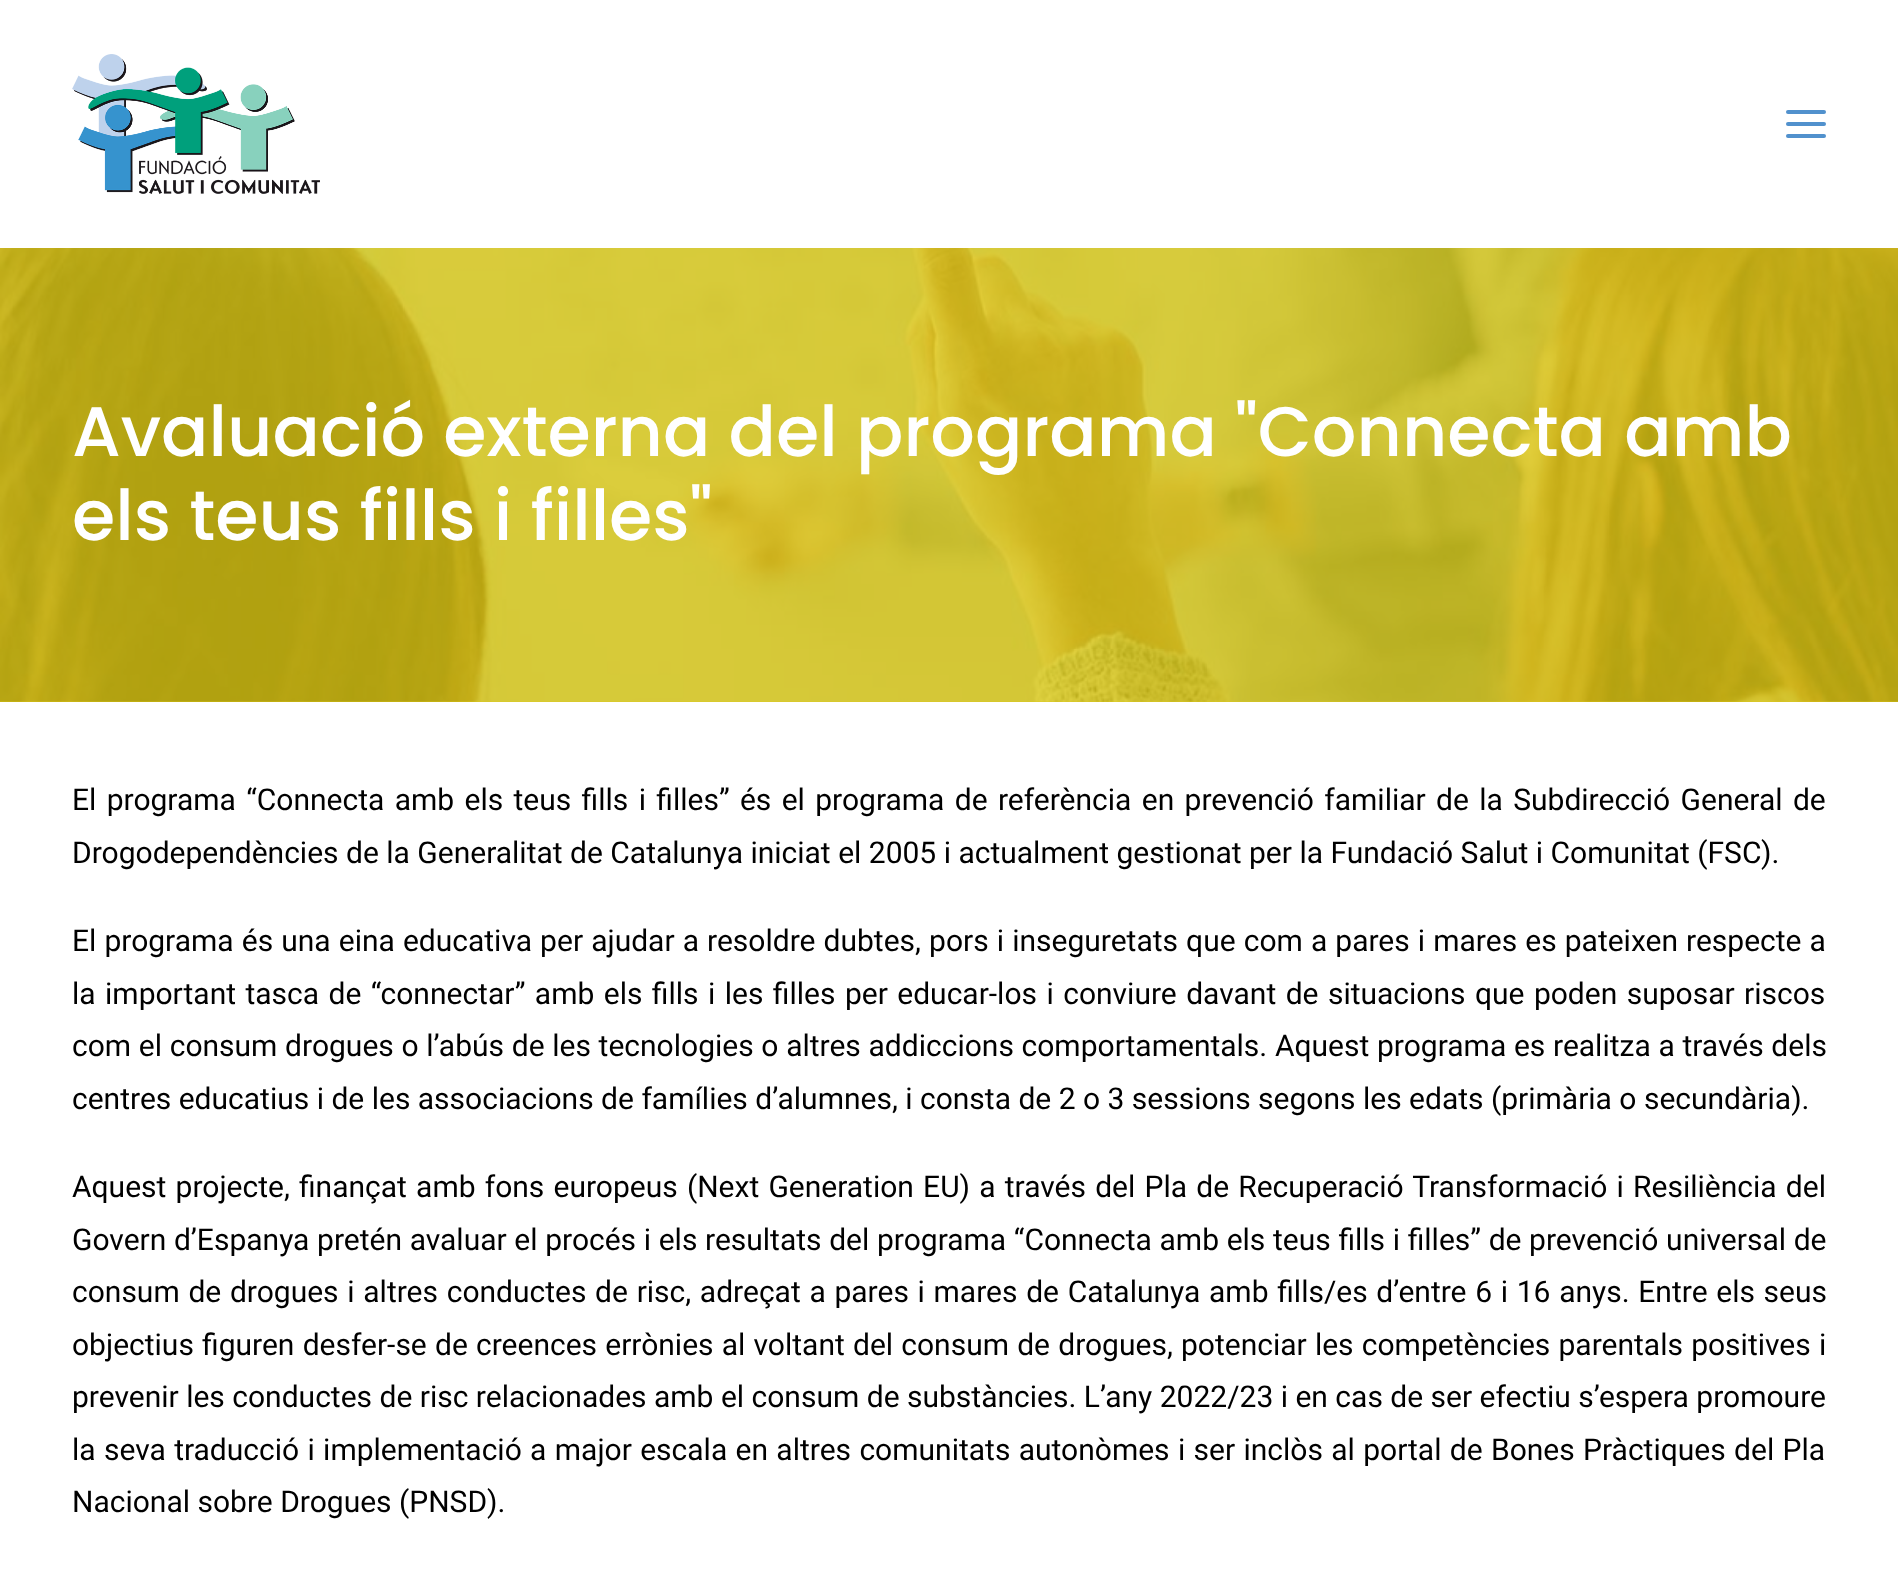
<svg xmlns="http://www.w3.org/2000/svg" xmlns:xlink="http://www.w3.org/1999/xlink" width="1898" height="1596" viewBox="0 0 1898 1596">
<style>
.cls-1{font:500 70px Poppins;fill:#ffffff}
.cls-2{font:30px Roboto;fill:#000000}
</style>
<rect width="100%" height="100%" fill="#ffffff"/>
<image xlink:href="image0.png" x="72" y="54" width="248" height="140"/>
<rect fill="#5191cd" x="1786" y="122" width="40" height="4" rx="2"/>
<rect fill="#5191cd" x="1786" y="110" width="40" height="4" rx="2"/>
<rect fill="#5191cd" x="1786" y="134" width="40" height="4" rx="2"/>
<rect fill="#deca12" x="0" y="701" width="1898" height="1"/>
<image xlink:href="image1.png" x="0" y="248" width="1898" height="454"/>
<text class="cls-1"><tspan x="72" y="456">Avaluació externa del programa "Connecta amb</tspan><tspan x="72" y="540">els teus fills i filles"</tspan></text>
<text class="cls-2"><tspan x="72" y="810" word-spacing="2.9">El programa “Connecta amb els teus fills i filles” és el programa de referència en prevenció familiar de la Subdirecció General de</tspan><tspan x="72" y="863">Drogodependències de la Generalitat de Catalunya iniciat el 2005 i actualment gestionat per la Fundació Salut i Comunitat (FSC).</tspan></text>
<text class="cls-2"><tspan x="72" y="951" word-spacing="0.65">El programa és una eina educativa per ajudar a resoldre dubtes, pors i inseguretats que com a pares i mares es pateixen respecte a</tspan><tspan x="72" y="1004" word-spacing="2">la important tasca de “connectar” amb els fills i les filles per educar-los i conviure davant de situacions que poden suposar riscos</tspan><tspan x="72" y="1056" word-spacing="0.25">com el consum drogues o l’abús de les tecnologies o altres addiccions comportamentals. Aquest programa es realitza a través dels</tspan><tspan x="72" y="1109">centres educatius i de les associacions de famílies d’alumnes, i consta de 2 o 3 sessions segons les edats (primària o secundària).</tspan></text>
<text class="cls-2"><tspan x="72" y="1197" word-spacing="1.75">Aquest projecte, finançat amb fons europeus (Next Generation EU) a través del Pla de Recuperació Transformació i Resiliència del</tspan><tspan x="72" y="1250" word-spacing="0.2">Govern d’Espanya pretén avaluar el procés i els resultats del programa “Connecta amb els teus fills i filles” de prevenció universal de</tspan><tspan x="72" y="1302" word-spacing="1.25">consum de drogues i altres conductes de risc, adreçat a pares i mares de Catalunya amb fills/es d’entre 6 i 16 anys. Entre els seus</tspan><tspan x="72" y="1355" word-spacing="0.75">objectius figuren desfer-se de creences errònies al voltant del consum de drogues, potenciar les competències parentals positives i</tspan><tspan x="72" y="1407">prevenir les conductes de risc relacionades amb el consum de substàncies. L’any 2022/23 i en cas de ser efectiu s’espera promoure</tspan><tspan x="72" y="1460" word-spacing="0.9">la seva traducció i implementació a major escala en altres comunitats autonòmes i ser inclòs al portal de Bones Pràctiques del Pla</tspan><tspan x="72" y="1512">Nacional sobre Drogues (PNSD).</tspan></text>
</svg>
